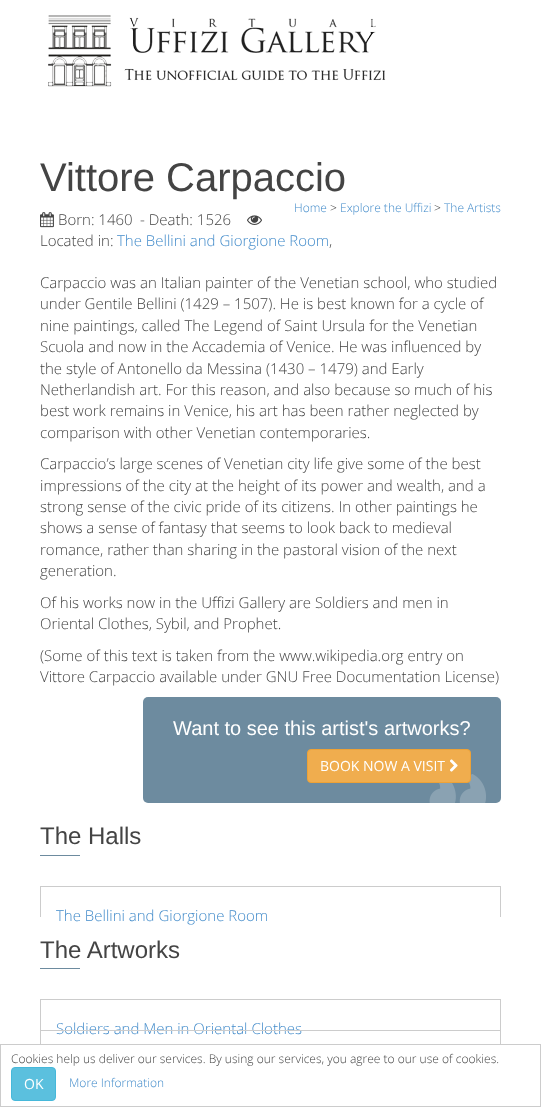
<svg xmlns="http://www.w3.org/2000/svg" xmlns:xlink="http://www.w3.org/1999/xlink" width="541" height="1107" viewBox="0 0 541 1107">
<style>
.cls-1{font:40px Liberation Sans;fill:#444444}
.cls-2{font:300 12px Open Sans;fill:#428bca}
.cls-3{font:300 12px Open Sans;fill:#444444}
.cls-4{font:300 15px Open Sans;fill:#444444}
.cls-5{font:300 15px Open Sans;fill:#428bca}
.cls-6{font:20px Liberation Sans;fill:#ffffff}
.cls-7{font:14px Open Sans;fill:#ffffff}
.cls-8{font:24px Liberation Sans;fill:#444444}
</style>
<rect width="100%" height="100%" fill="#ffffff"/>
<image xlink:href="image0.png" x="48" y="15" width="338" height="72"/>
<image xlink:href="image1.png" x="40" y="212" width="14" height="16"/>
<image xlink:href="image2.png" x="247" y="215" width="15" height="10"/>
<rect fill="#6d8b9f" x="143" y="697" width="358" height="106" rx="5"/>
<image xlink:href="image3.png" x="429" y="774" width="57" height="29"/>
<rect fill="#f0ad4e" stroke="#eea236" x="307.5" y="749.5" width="163" height="33" rx="3.5"/>
<image xlink:href="image4.png" x="450" y="759" width="8" height="13"/>
<rect fill="#6d8b9f" x="40" y="855" width="40" height="1"/>
<rect fill="#cccccc" x="40" y="886" width="461" height="1"/>
<rect fill="#cccccc" x="500" y="886" width="1" height="31"/>
<rect fill="#cccccc" x="40" y="886" width="1" height="31"/>
<rect fill="#6d8b9f" x="40" y="968" width="40" height="1"/>
<rect fill="#cccccc" x="40" y="999" width="461" height="1"/>
<rect fill="#cccccc" x="500" y="999" width="1" height="31"/>
<rect fill="#cccccc" x="40" y="999" width="1" height="31"/>
<rect fill="none" stroke="#cccccc" x="0.5" y="1044.5" width="540" height="62"/>
<rect fill="#5bc0de" stroke="#46b8da" x="11.5" y="1067.5" width="44" height="33" rx="3.5"/>
<text class="cls-1" x="40" y="191">Vittore Carpaccio</text>
<text class="cls-2" x="294" y="212">Home</text>
<text class="cls-3" x="330" y="212">&gt;</text>
<text class="cls-2" x="340" y="212">Explore the Uffizi</text>
<text class="cls-3" x="434" y="212">&gt;</text>
<text class="cls-2" x="444" y="212">The Artists</text>
<text class="cls-4" x="58" y="225">Born: 1460</text>
<text class="cls-4" x="140" y="225">- Death: 1526</text>
<text class="cls-4" x="40" y="246">Located in:</text>
<text class="cls-5" x="117" y="246">The Bellini and Giorgione Room</text>
<text class="cls-4" x="329" y="246">,</text>
<text class="cls-4"><tspan x="40" y="288">Carpaccio was an Italian painter of the Venetian school, who studied</tspan><tspan x="40" y="309">under Gentile Bellini (1429 – 1507). He is best known for a cycle of</tspan><tspan x="40" y="331">nine paintings, called The Legend of Saint Ursula for the Venetian</tspan><tspan x="40" y="352">Scuola and now in the Accademia of Venice. He was influenced by</tspan><tspan x="40" y="374">the style of Antonello da Messina (1430 – 1479) and Early</tspan><tspan x="40" y="395">Netherlandish art. For this reason, and also because so much of his</tspan><tspan x="40" y="416">best work remains in Venice, his art has been rather neglected by</tspan><tspan x="40" y="438">comparison with other Venetian contemporaries.</tspan></text>
<text class="cls-4"><tspan x="40" y="469">Carpaccio’s large scenes of Venetian city life give some of the best</tspan><tspan x="40" y="491">impressions of the city at the height of its power and wealth, and a</tspan><tspan x="40" y="512">strong sense of the civic pride of its citizens. In other paintings he</tspan><tspan x="40" y="533">shows a sense of fantasy that seems to look back to medieval</tspan><tspan x="40" y="555">romance, rather than sharing in the pastoral vision of the next</tspan><tspan x="40" y="576">generation.</tspan></text>
<text class="cls-4"><tspan x="40" y="608">Of his works now in the Uffizi Gallery are Soldiers and men in</tspan><tspan x="40" y="629">Oriental Clothes, Sybil, and Prophet.</tspan></text>
<text class="cls-4"><tspan x="40" y="661">(Some of this text is taken from the www.wikipedia.org entry on</tspan><tspan x="40" y="682">Vittore Carpaccio available under GNU Free Documentation License)</tspan></text>
<text class="cls-6" x="173" y="735">Want to see this artist's artworks?</text>
<text class="cls-7" x="320" y="771">BOOK NOW A VISIT</text>
<text class="cls-8" x="40" y="844">The Halls</text>
<text class="cls-5" x="56" y="921">The Bellini and Giorgione Room</text>
<text class="cls-8" x="40" y="958">The Artworks</text>
<text class="cls-5" x="56" y="1034">Soldiers and Men in Oriental Clothes</text>
<rect fill="#cccccc" x="40" y="1030" width="461" height="1"/>
<rect fill="#cccccc" x="500" y="1030" width="1" height="14"/>
<rect fill="#cccccc" x="40" y="1030" width="1" height="14"/>
<text class="cls-3" x="11" y="1063">Cookies help us deliver our services. By using our services, you agree to our use of cookies.</text>
<text class="cls-7" x="24" y="1089">OK</text>
<text class="cls-2" x="69" y="1087">More Information</text>
</svg>
